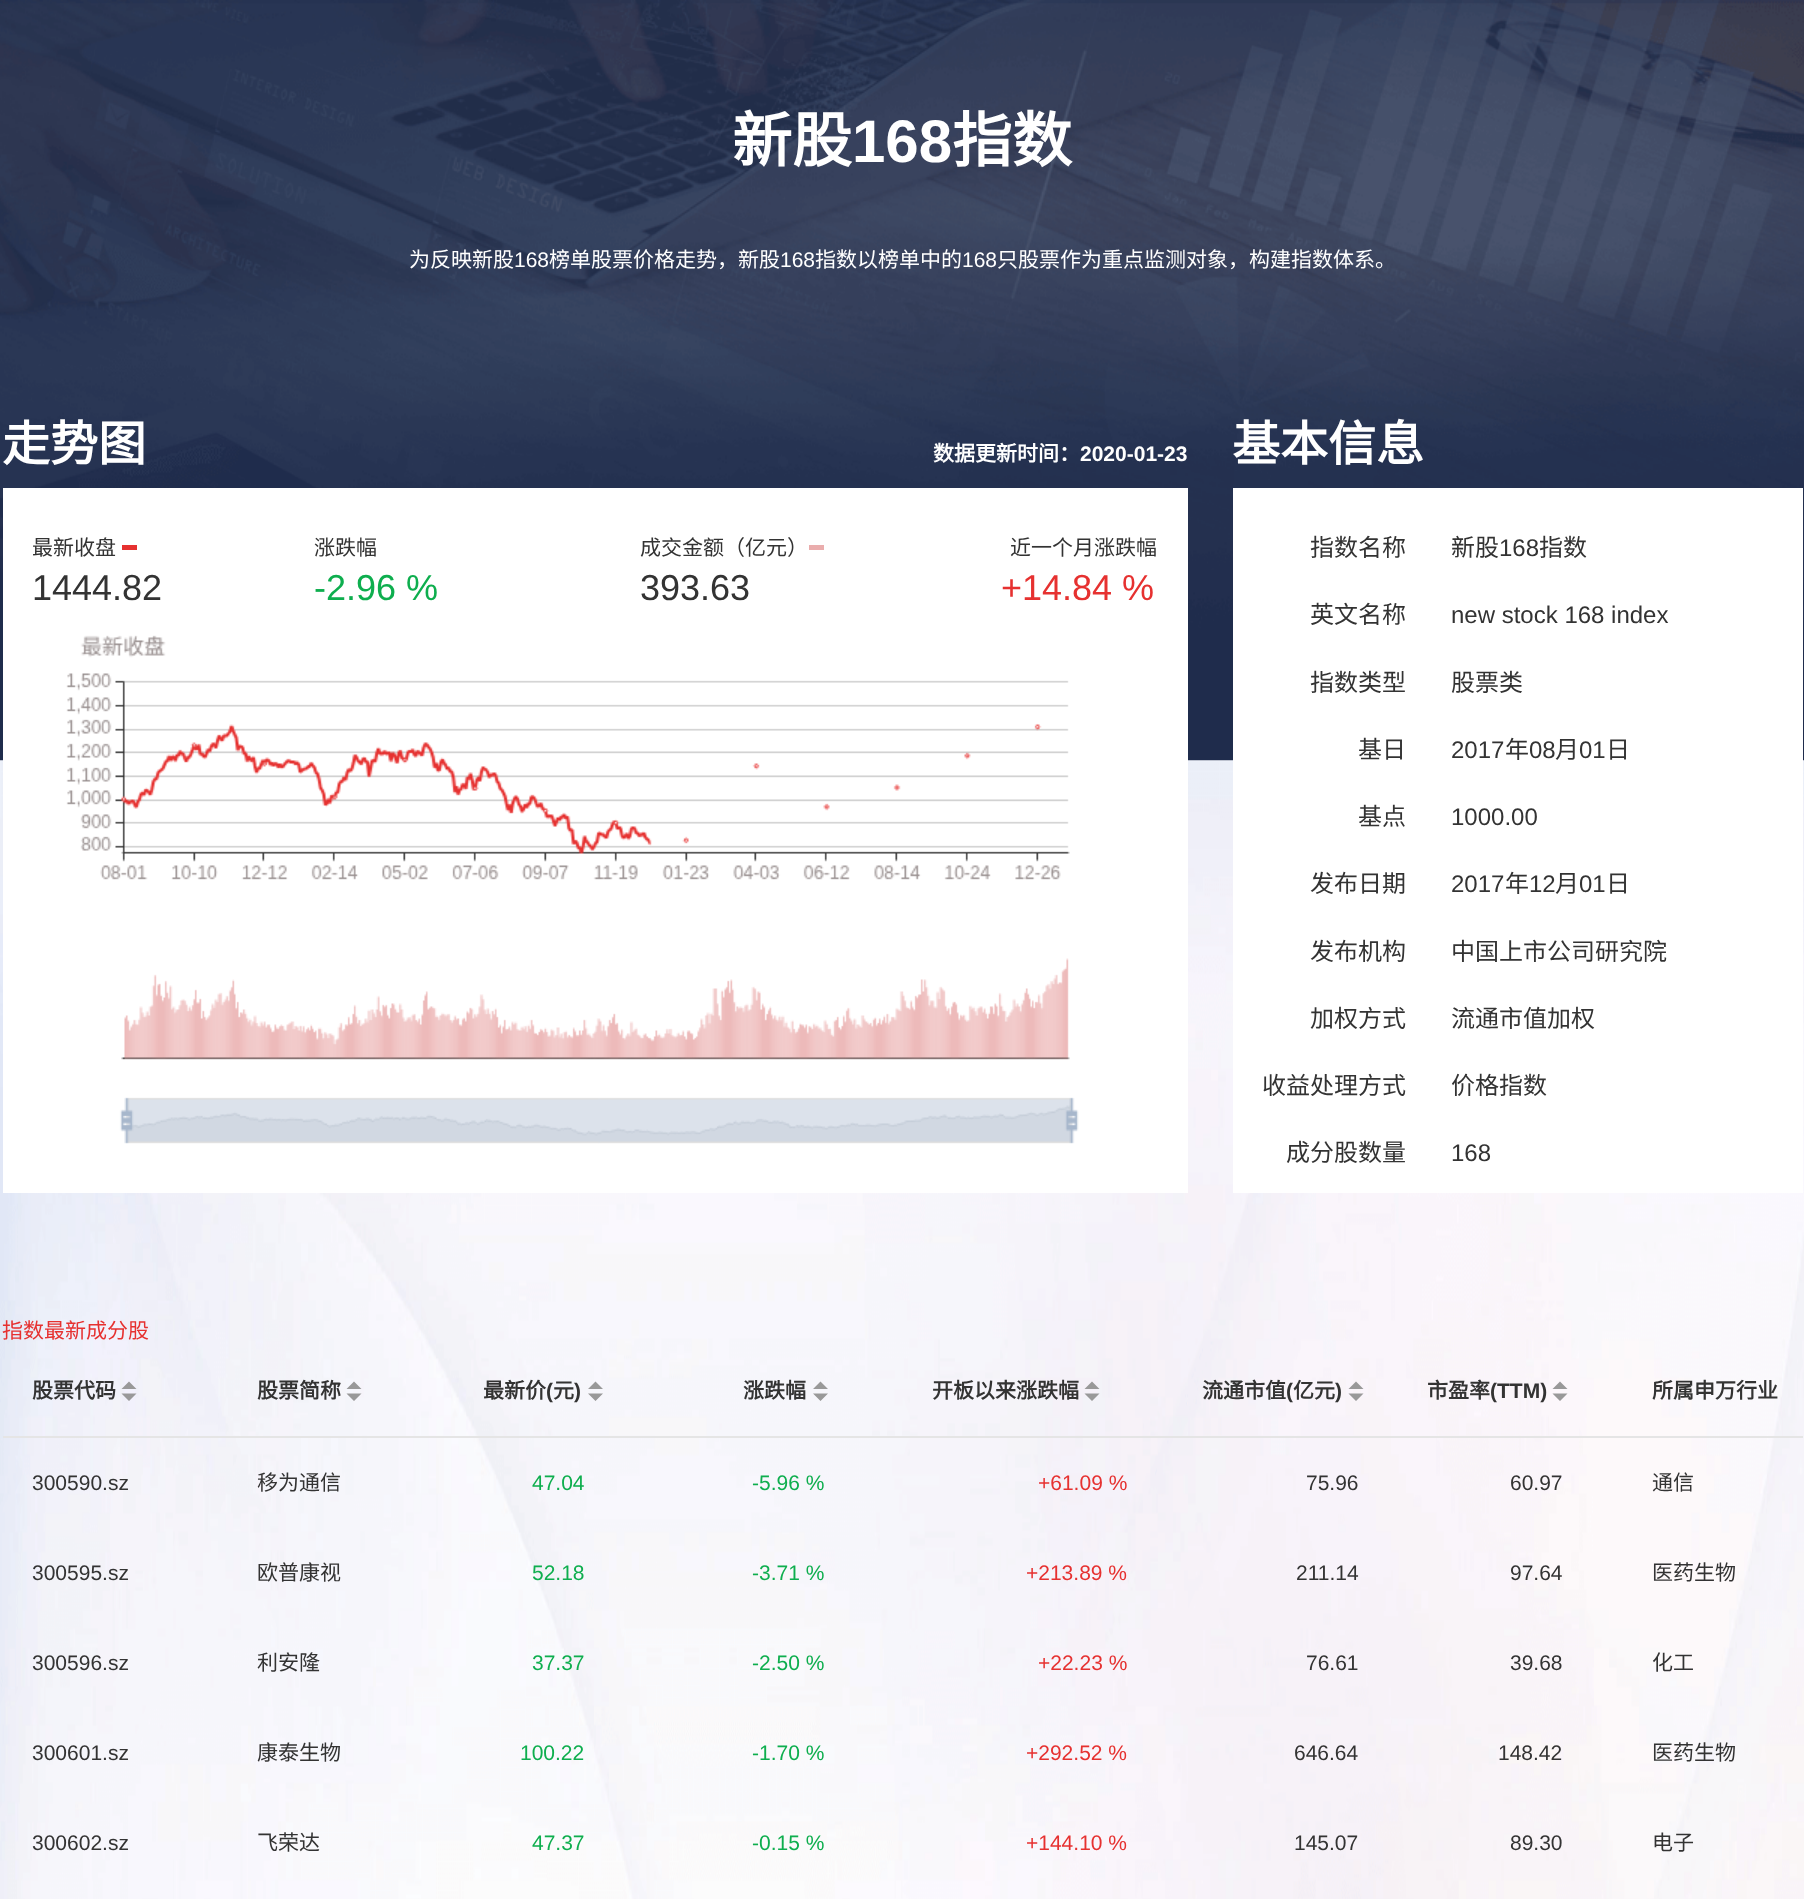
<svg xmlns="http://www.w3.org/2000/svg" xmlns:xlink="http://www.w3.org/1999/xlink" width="1804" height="1899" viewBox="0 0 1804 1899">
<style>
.cls-1{font:bold 60px Noto Sans CJK SC;fill:#ffffff}
.cls-2{font:bold 60px Liberation Sans;fill:#ffffff}
.cls-3{font:21px Noto Sans CJK SC;fill:#ffffff}
.cls-4{font:21px Liberation Sans;fill:#ffffff}
.cls-5{font:bold 48px Noto Sans CJK SC;fill:#ffffff}
.cls-6{font:bold 21px Noto Sans CJK SC;fill:#ffffff}
.cls-7{font:bold 21px Liberation Sans;fill:#ffffff}
.cls-8{font:21px Noto Sans CJK SC;fill:#333333}
.cls-9{font:36px Liberation Sans;fill:#333333}
.cls-10{font:36px Liberation Sans;fill:#0eae4e}
.cls-11{font:36px Liberation Sans;fill:#e63130}
.cls-12{font:24px Noto Sans CJK SC;fill:#333333}
.cls-13{font:24px Liberation Sans;fill:#333333}
.cls-14{font:21px Noto Sans CJK SC;fill:#e63130}
.cls-15{font:bold 21px Noto Sans CJK SC;fill:#333333}
.cls-16{font:bold 21px Liberation Sans;fill:#333333}
.cls-17{font:21px Liberation Sans;fill:#333333}
.cls-18{font:21px Liberation Sans;fill:#0eae4e}
.cls-19{font:21px Liberation Sans;fill:#e63130}
</style>
<rect width="100%" height="100%" fill="#ffffff"/>
<image xlink:href="image0.png" x="0" y="0" width="1804" height="761"/>
<image xlink:href="image2.png" x="0" y="760" width="1804" height="1139"/>
<rect fill="#ffffff" x="3" y="488" width="1185" height="705"/>
<rect fill="#e63130" x="122" y="545" width="15" height="5"/>
<rect fill="#eaadad" x="809" y="545" width="15" height="5"/>
<image xlink:href="image1.png" x="66" y="635" width="1013" height="509"/>
<rect fill="#ffffff" x="1233" y="488" width="570" height="705"/>
<path fill="#999999" d="M136.5 1389H121.5L129 1381.5ZM121.5 1393.5H136.5L129 1401Z"/>
<path fill="#999999" d="M361.5 1389H346.5L354 1381.5ZM346.5 1393.5H361.5L354 1401Z"/>
<path fill="#999999" d="M603 1389H588L595.5 1381.5ZM588 1393.5H603L595.5 1401Z"/>
<path fill="#999999" d="M828 1389H813L820.5 1381.5ZM813 1393.5H828L820.5 1401Z"/>
<path fill="#999999" d="M1099.5 1389H1084.5L1092 1381.5ZM1084.5 1393.5H1099.5L1092 1401Z"/>
<path fill="#999999" d="M1363.5 1389H1348.5L1356 1381.5ZM1348.5 1393.5H1363.5L1356 1401Z"/>
<path fill="#999999" d="M1567.5 1389H1552.5L1560 1381.5ZM1552.5 1393.5H1567.5L1560 1401Z"/>
<rect fill="#e5e5e5" x="3" y="1436" width="1800" height="2"/>
<text class="cls-1" x="732" y="162">新股</text>
<text class="cls-2" x="852" y="162">168</text>
<text class="cls-1" x="952" y="162">指数</text>
<text class="cls-3" x="409" y="267">为反映新股</text>
<text class="cls-4" x="514" y="267">168</text>
<text class="cls-3" x="549" y="267">榜单股票价格走势，新股</text>
<text class="cls-4" x="780" y="267">168</text>
<text class="cls-3" x="815" y="267">指数以榜单中的</text>
<text class="cls-4" x="962" y="267">168</text>
<text class="cls-3" x="997" y="267">只股票作为重点监测对象，构建指数体系。</text>
<text class="cls-5" x="2" y="461">走势图</text>
<text class="cls-6" x="933" y="461">数据更新时间：</text>
<text class="cls-7" x="1080" y="461">2020-01-23</text>
<text class="cls-8" x="32" y="555">最新收盘</text>
<text class="cls-9" x="32" y="600">1444.82</text>
<text class="cls-8" x="314" y="555">涨跌幅</text>
<text class="cls-10" x="314" y="600">-2.96 %</text>
<text class="cls-8" x="640" y="555">成交金额（亿元）</text>
<text class="cls-9" x="640" y="600">393.63</text>
<text class="cls-8" x="1010" y="555">近一个月涨跌幅</text>
<text class="cls-11" x="1001" y="600">+14.84 %</text>
<text class="cls-5" x="1232" y="461">基本信息</text>
<text class="cls-12" x="1310" y="556">指数名称</text>
<text class="cls-12" x="1451" y="556">新股</text>
<text class="cls-13" x="1499" y="556">168</text>
<text class="cls-12" x="1539" y="556">指数</text>
<text class="cls-12" x="1310" y="623">英文名称</text>
<text class="cls-13" x="1451" y="623">new stock 168 index</text>
<text class="cls-12" x="1310" y="691">指数类型</text>
<text class="cls-12" x="1451" y="691">股票类</text>
<text class="cls-12" x="1358" y="758">基日</text>
<text class="cls-13" x="1451" y="758">2017</text>
<text class="cls-12" x="1505" y="758">年</text>
<text class="cls-13" x="1529" y="758">08</text>
<text class="cls-12" x="1555" y="758">月</text>
<text class="cls-13" x="1579" y="758">01</text>
<text class="cls-12" x="1606" y="758">日</text>
<text class="cls-12" x="1358" y="825">基点</text>
<text class="cls-13" x="1451" y="825">1000.00</text>
<text class="cls-12" x="1310" y="892">发布日期</text>
<text class="cls-13" x="1451" y="892">2017</text>
<text class="cls-12" x="1505" y="892">年</text>
<text class="cls-13" x="1529" y="892">12</text>
<text class="cls-12" x="1555" y="892">月</text>
<text class="cls-13" x="1579" y="892">01</text>
<text class="cls-12" x="1606" y="892">日</text>
<text class="cls-12" x="1310" y="960">发布机构</text>
<text class="cls-12" x="1451" y="960">中国上市公司研究院</text>
<text class="cls-12" x="1310" y="1027">加权方式</text>
<text class="cls-12" x="1451" y="1027">流通市值加权</text>
<text class="cls-12" x="1262" y="1094">收益处理方式</text>
<text class="cls-12" x="1451" y="1094">价格指数</text>
<text class="cls-12" x="1286" y="1161">成分股数量</text>
<text class="cls-13" x="1451" y="1161">168</text>
<text class="cls-14" x="2" y="1338">指数最新成分股</text>
<text class="cls-15" x="32" y="1398">股票代码</text>
<text class="cls-15" x="257" y="1398">股票简称</text>
<text class="cls-15" x="483" y="1398">最新价</text>
<text class="cls-16" x="546" y="1398">(</text>
<text class="cls-15" x="553" y="1398">元</text>
<text class="cls-16" x="574" y="1398">)</text>
<text class="cls-15" x="743" y="1398">涨跌幅</text>
<text class="cls-15" x="932" y="1398">开板以来涨跌幅</text>
<text class="cls-15" x="1202" y="1398">流通市值</text>
<text class="cls-16" x="1286" y="1398">(</text>
<text class="cls-15" x="1293" y="1398">亿元</text>
<text class="cls-16" x="1335" y="1398">)</text>
<text class="cls-15" x="1427" y="1398">市盈率</text>
<text class="cls-16" x="1490" y="1398">(TTM)</text>
<text class="cls-15" x="1652" y="1398">所属申万行业</text>
<text class="cls-17" x="32" y="1490">300590.sz</text>
<text class="cls-8" x="257" y="1490">移为通信</text>
<text class="cls-18" x="532" y="1490">47.04</text>
<text class="cls-18" x="752" y="1490">-5.96 %</text>
<text class="cls-19" x="1038" y="1490">+61.09 %</text>
<text class="cls-17" x="1306" y="1490">75.96</text>
<text class="cls-17" x="1510" y="1490">60.97</text>
<text class="cls-8" x="1652" y="1490">通信</text>
<text class="cls-17" x="32" y="1580">300595.sz</text>
<text class="cls-8" x="257" y="1580">欧普康视</text>
<text class="cls-18" x="532" y="1580">52.18</text>
<text class="cls-18" x="752" y="1580">-3.71 %</text>
<text class="cls-19" x="1026" y="1580">+213.89 %</text>
<text class="cls-17" x="1296" y="1580">211.14</text>
<text class="cls-17" x="1510" y="1580">97.64</text>
<text class="cls-8" x="1652" y="1580">医药生物</text>
<text class="cls-17" x="32" y="1670">300596.sz</text>
<text class="cls-8" x="257" y="1670">利安隆</text>
<text class="cls-18" x="532" y="1670">37.37</text>
<text class="cls-18" x="752" y="1670">-2.50 %</text>
<text class="cls-19" x="1038" y="1670">+22.23 %</text>
<text class="cls-17" x="1306" y="1670">76.61</text>
<text class="cls-17" x="1510" y="1670">39.68</text>
<text class="cls-8" x="1652" y="1670">化工</text>
<text class="cls-17" x="32" y="1760">300601.sz</text>
<text class="cls-8" x="257" y="1760">康泰生物</text>
<text class="cls-18" x="520" y="1760">100.22</text>
<text class="cls-18" x="752" y="1760">-1.70 %</text>
<text class="cls-19" x="1026" y="1760">+292.52 %</text>
<text class="cls-17" x="1294" y="1760">646.64</text>
<text class="cls-17" x="1498" y="1760">148.42</text>
<text class="cls-8" x="1652" y="1760">医药生物</text>
<text class="cls-17" x="32" y="1850">300602.sz</text>
<text class="cls-8" x="257" y="1850">飞荣达</text>
<text class="cls-18" x="532" y="1850">47.37</text>
<text class="cls-18" x="752" y="1850">-0.15 %</text>
<text class="cls-19" x="1026" y="1850">+144.10 %</text>
<text class="cls-17" x="1294" y="1850">145.07</text>
<text class="cls-17" x="1510" y="1850">89.30</text>
<text class="cls-8" x="1652" y="1850">电子</text>
</svg>
